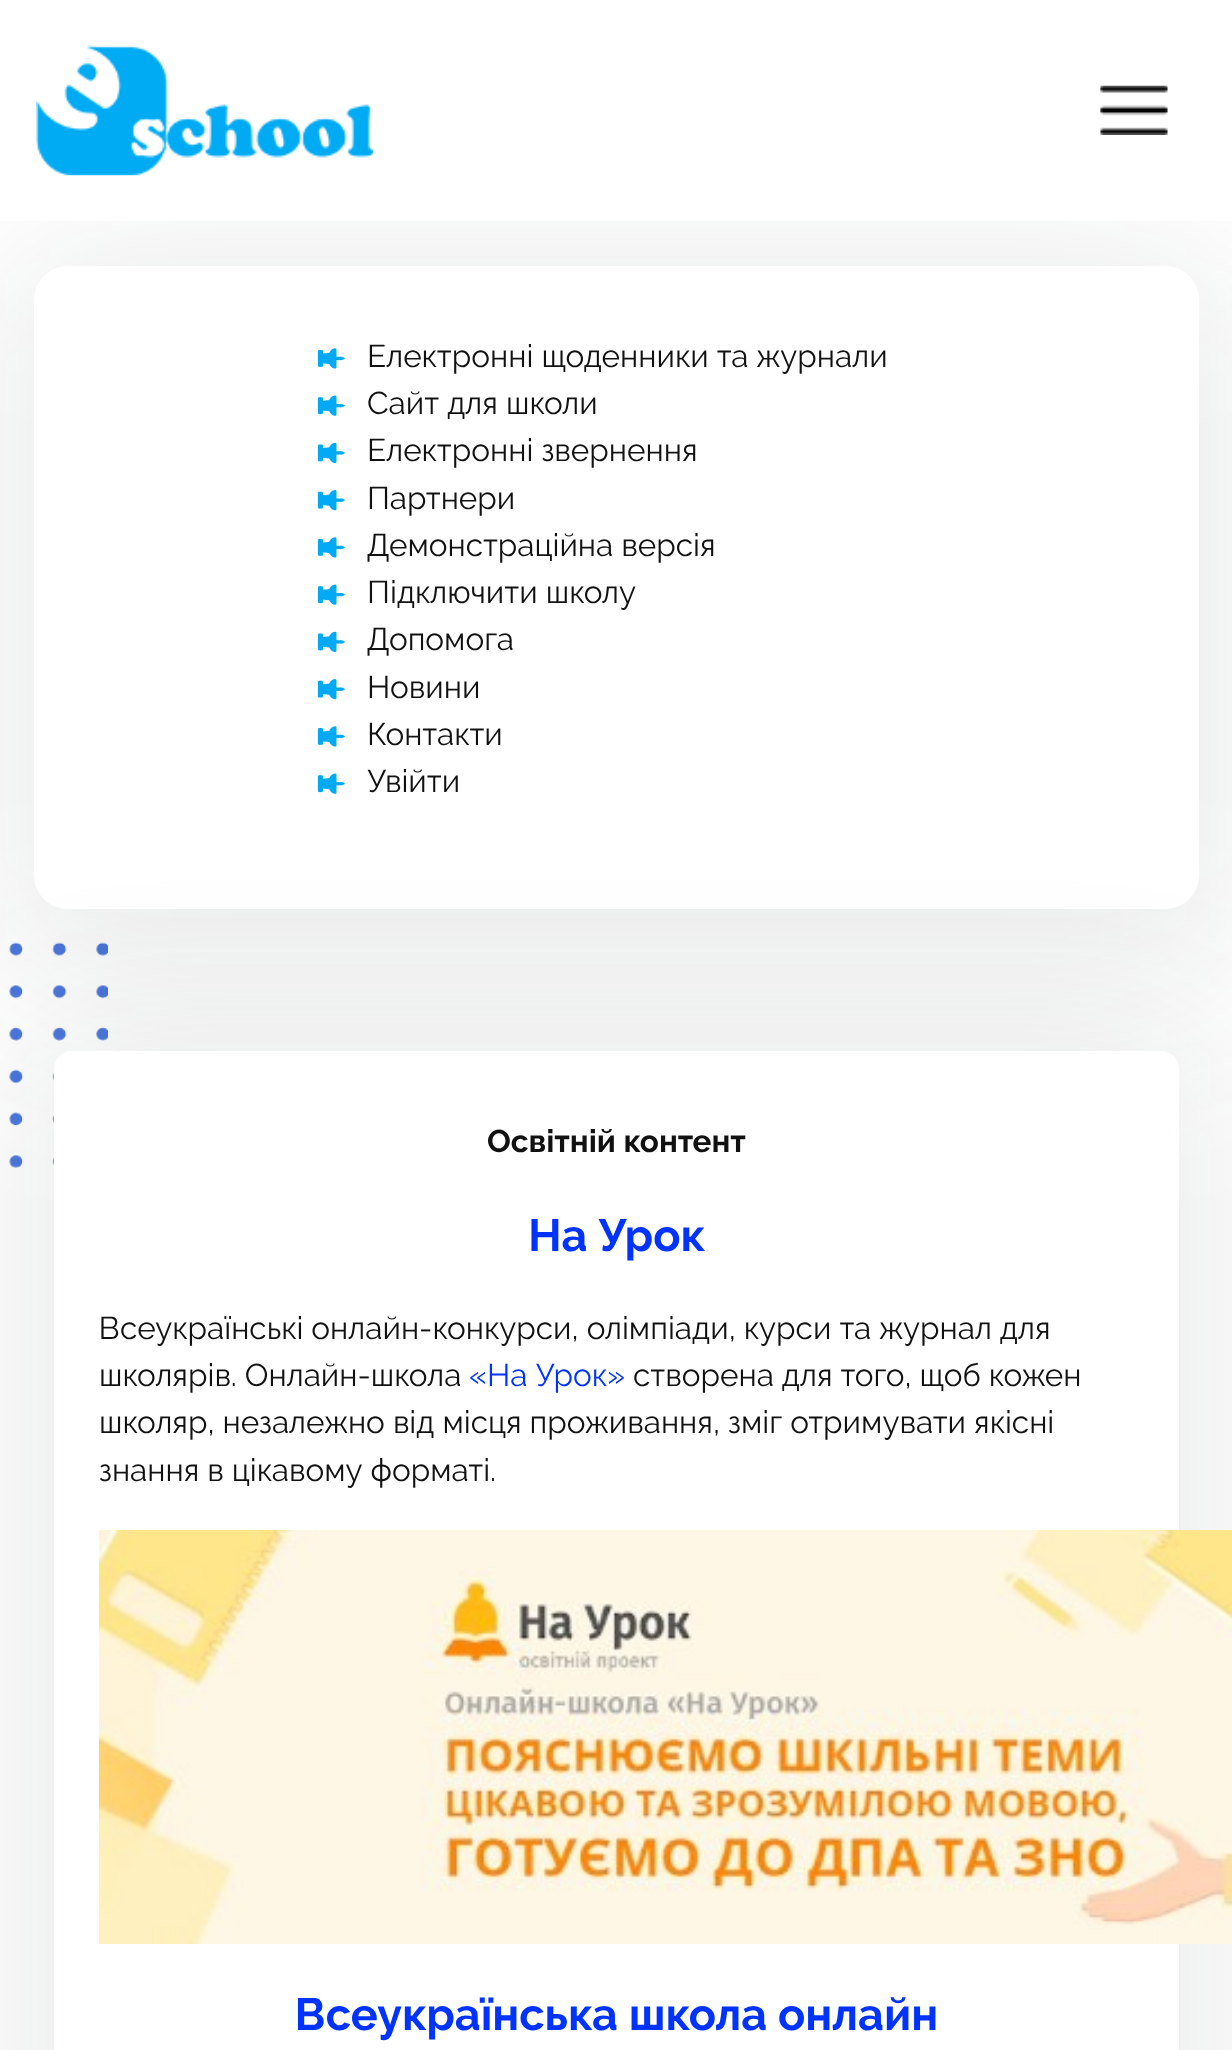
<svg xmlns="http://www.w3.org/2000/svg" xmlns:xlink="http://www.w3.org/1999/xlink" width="1232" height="2050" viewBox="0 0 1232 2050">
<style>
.cls-1{font:31.5px Raleway;fill:#111111}
.cls-2{font:bold 31.5px Raleway;fill:#111111}
.cls-3{font:bold 45px Raleway;fill:#0033ff}
.cls-4{font:31.5px Raleway;fill:#0033ff}
</style>
<defs>
<clipPath id="clip1"><rect x="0" y="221" width="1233" height="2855"/></clipPath>
<clipPath id="clip2"><path d="M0 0H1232V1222H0ZM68 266H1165C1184 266 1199 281 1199 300V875C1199 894 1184 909 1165 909H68C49 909 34 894 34 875V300C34 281 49 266 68 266Z" clip-rule="evenodd"/></clipPath>
</defs>
<rect width="100%" height="100%" fill="#ffffff"/>
<image xlink:href="image0.png" x="36" y="45" width="338" height="131"/>
<image xlink:href="image1.png" x="1100" y="85" width="68" height="50"/>
<image xlink:href="image6.png" x="9" y="942" width="99" height="226"/>
<g clip-path="url(#clip1)">
<g clip-path="url(#clip2)">
<rect fill="#2a2d2e" fill-opacity="0.1" filter="blur(86px)" x="5" y="259" width="1226" height="704" rx="65"/>
</g>
</g>
<image xlink:href="image2.png" x="317" y="348" width="28" height="21"/>
<image xlink:href="image3.png" x="317" y="395" width="28" height="21"/>
<image xlink:href="image4.png" x="317" y="442" width="28" height="21"/>
<image xlink:href="image5.png" x="317" y="490" width="28" height="21"/>
<image xlink:href="image2.png" x="317" y="537" width="28" height="21"/>
<image xlink:href="image3.png" x="317" y="584" width="28" height="21"/>
<image xlink:href="image4.png" x="317" y="631" width="28" height="21"/>
<image xlink:href="image5.png" x="317" y="679" width="28" height="21"/>
<image xlink:href="image2.png" x="317" y="726" width="28" height="21"/>
<image xlink:href="image3.png" x="317" y="773" width="28" height="21"/>
<rect fill="#2a2d2e" fill-opacity="0.1" filter="blur(86px)" x="25" y="1044" width="1186" height="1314" rx="50"/>
<rect fill="#ffffff" x="54" y="1051" width="1125" height="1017" rx="18"/>
<image xlink:href="image7.png" x="99" y="1530" width="1133" height="414"/>
<text class="cls-1"><tspan x="367" y="367">Електронні щоденники та журнали</tspan><tspan x="367" y="414">Сайт для школи</tspan><tspan x="367" y="461">Електронні звернення</tspan><tspan x="367" y="509">Партнери</tspan><tspan x="367" y="556">Демонстраційна версія</tspan><tspan x="367" y="603">Підключити школу</tspan><tspan x="367" y="650">Допомога</tspan><tspan x="367" y="698">Новини</tspan><tspan x="367" y="745">Контакти</tspan><tspan x="367" y="792">Увійти</tspan></text>
<text class="cls-2" x="487" y="1152">Освітній контент</text>
<text class="cls-3" x="528" y="1251">На Урок</text>
<text class="cls-1"><tspan x="99" y="1339">Всеукраїнські онлайн-конкурси, олімпіади, курси та журнал для</tspan><tspan x="99" y="1386">школярів. Онлайн-школа</tspan></text>
<text class="cls-4" x="469" y="1386">«На Урок»</text>
<text class="cls-1" x="633" y="1386">створена для того, щоб кожен</text>
<text class="cls-1"><tspan x="99" y="1433">школяр, незалежно від місця проживання, зміг отримувати якісні</tspan><tspan x="99" y="1481">знання в цікавому форматі.</tspan></text>
<text class="cls-3" x="295" y="2030">Всеукраїнська школа онлайн</text>
</svg>
